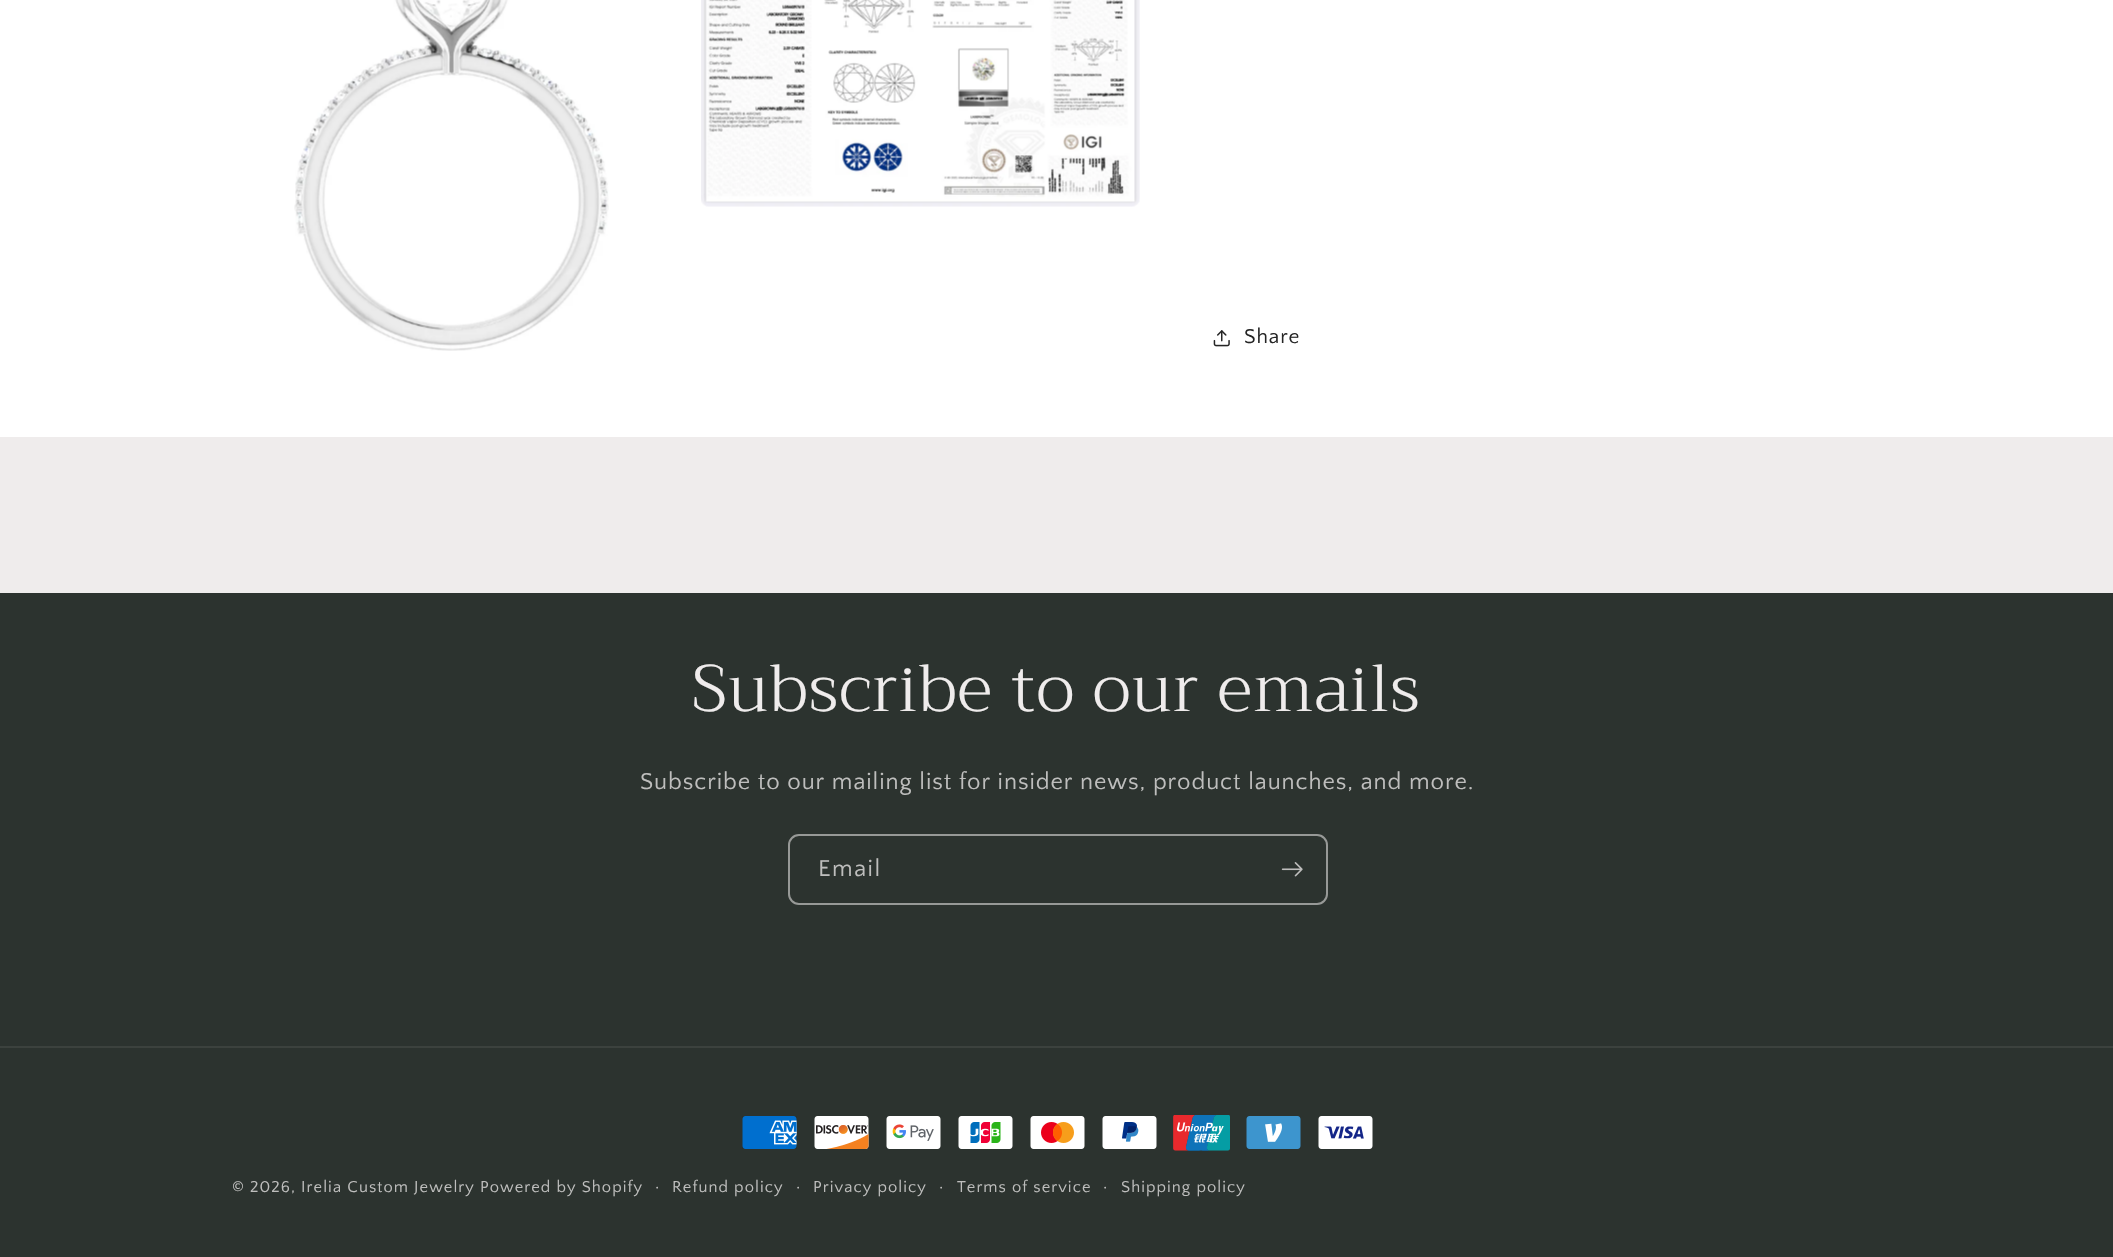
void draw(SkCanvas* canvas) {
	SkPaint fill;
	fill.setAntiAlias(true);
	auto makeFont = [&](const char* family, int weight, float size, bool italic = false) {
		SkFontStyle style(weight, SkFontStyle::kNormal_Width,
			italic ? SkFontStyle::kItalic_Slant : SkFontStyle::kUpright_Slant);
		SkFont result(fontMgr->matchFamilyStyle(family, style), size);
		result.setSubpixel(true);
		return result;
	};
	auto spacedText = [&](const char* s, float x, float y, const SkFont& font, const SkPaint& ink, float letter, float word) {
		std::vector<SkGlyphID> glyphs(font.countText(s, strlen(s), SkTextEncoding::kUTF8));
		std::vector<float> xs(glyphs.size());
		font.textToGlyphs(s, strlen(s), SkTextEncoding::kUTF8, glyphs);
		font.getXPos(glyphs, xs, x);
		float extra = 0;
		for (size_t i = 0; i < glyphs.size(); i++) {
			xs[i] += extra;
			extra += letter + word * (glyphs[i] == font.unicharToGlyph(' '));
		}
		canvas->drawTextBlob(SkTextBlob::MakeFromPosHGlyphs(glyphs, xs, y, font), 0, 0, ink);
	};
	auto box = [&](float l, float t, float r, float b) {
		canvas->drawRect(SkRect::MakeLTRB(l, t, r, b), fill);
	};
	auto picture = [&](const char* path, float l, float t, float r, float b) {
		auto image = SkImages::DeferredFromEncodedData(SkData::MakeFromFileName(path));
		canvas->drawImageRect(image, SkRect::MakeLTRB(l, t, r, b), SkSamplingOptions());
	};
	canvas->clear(0xFFEFECEC);
	fill.setColor(0xFFFFFFFF);
	box(0, 0, 2113, 437);
	picture("image0.png", 294, 0, 609, 351);
	picture("image1.png", 701, 0, 1140, 207);
	picture("image2.png", 1213, 330, 1230, 347);
	fill.setColor(0xFF2C332F);
	box(0, 593, 2113, 1257);
	fill.setStyle(SkPaint::kStroke_Style);
	fill.setStrokeWidth(2);
	fill.setColor(0xFF979997);
	canvas->drawRoundRect(SkRect::MakeLTRB(789, 835, 1327, 904), 10, 10, fill);
	picture("image3.png", 1281, 862, 1303, 877);
	fill.setStyle(SkPaint::kFill_Style);
	fill.setColor(0xFF3C423E);
	box(0, 1046, 2113, 1048);
	picture("image4.png", 742, 1116, 797, 1149);
	picture("image5.png", 814, 1116, 869, 1149);
	picture("image6.png", 886, 1116, 941, 1149);
	picture("image7.png", 958, 1116, 1013, 1149);
	picture("image8.png", 1030, 1116, 1085, 1149);
	picture("image9.png", 1102, 1116, 1157, 1149);
	picture("image10.png", 1173, 1115, 1230, 1151);
	picture("image11.png", 1246, 1116, 1301, 1149);
	picture("image12.png", 1318, 1116, 1373, 1149);
	auto font1 = makeFont("Quattrocento Sans", 400, 21);
	fill.setColor(0xFF252525);
	spacedText("Share", 1244, 343, font1, fill, 0.9f, 0);
	auto font2 = makeFont("Trirong", 300, 66);
	fill.setColor(0xFFEFECEC);
	spacedText("Subscribe to our emails", 692, 711, font2, fill, 1, 0);
	auto font3 = makeFont("Quattrocento Sans", 400, 24);
	fill.setColor(0xFFBEBEBD);
	spacedText("Subscribe to our mailing list for insider news, product launches, and more.", 640, 789, font3, fill, 0.9f, 0);
	spacedText("Email", 818, 876, font3, fill, 1.5f, 0);
	auto font4 = makeFont("Quattrocento Sans", 400, 16.5f);
	spacedText("© 2026, Irelia Custom Jewelry Powered by Shopify", 232, 1192, font4, fill, 1.05f, 0);
	auto font5 = makeFont("Quattrocento Sans", 400, 18);
	spacedText("·", 655, 1192, font5, fill, 1.05f, 0);
	spacedText("Refund policy", 672, 1192, font4, fill, 1.05f, 0);
	spacedText("·", 796, 1192, font5, fill, 1.05f, 0);
	spacedText("Privacy policy", 813, 1192, font4, fill, 1.05f, 0);
	spacedText("·", 939, 1192, font5, fill, 1.05f, 0);
	spacedText("Terms of service", 957, 1192, font4, fill, 1.05f, 0);
	spacedText("·", 1103, 1192, font5, fill, 1.05f, 0);
	spacedText("Shipping policy", 1121, 1192, font4, fill, 1.05f, 0);
}
